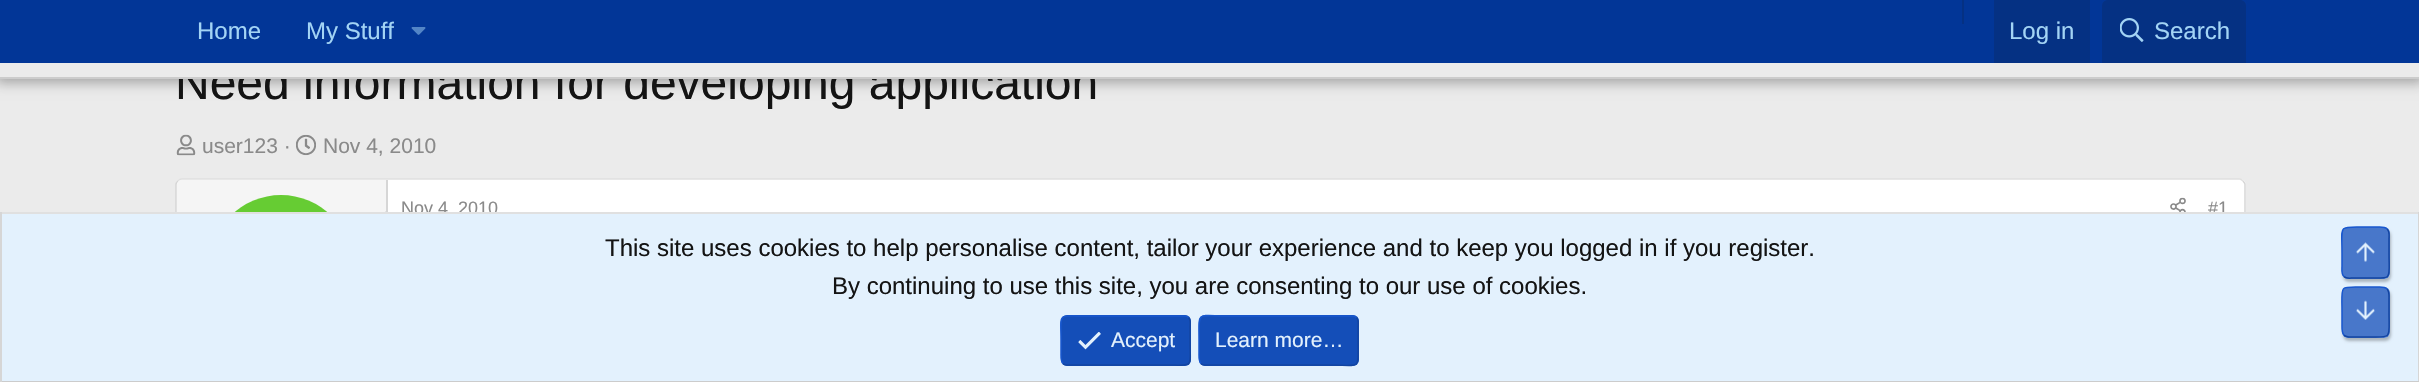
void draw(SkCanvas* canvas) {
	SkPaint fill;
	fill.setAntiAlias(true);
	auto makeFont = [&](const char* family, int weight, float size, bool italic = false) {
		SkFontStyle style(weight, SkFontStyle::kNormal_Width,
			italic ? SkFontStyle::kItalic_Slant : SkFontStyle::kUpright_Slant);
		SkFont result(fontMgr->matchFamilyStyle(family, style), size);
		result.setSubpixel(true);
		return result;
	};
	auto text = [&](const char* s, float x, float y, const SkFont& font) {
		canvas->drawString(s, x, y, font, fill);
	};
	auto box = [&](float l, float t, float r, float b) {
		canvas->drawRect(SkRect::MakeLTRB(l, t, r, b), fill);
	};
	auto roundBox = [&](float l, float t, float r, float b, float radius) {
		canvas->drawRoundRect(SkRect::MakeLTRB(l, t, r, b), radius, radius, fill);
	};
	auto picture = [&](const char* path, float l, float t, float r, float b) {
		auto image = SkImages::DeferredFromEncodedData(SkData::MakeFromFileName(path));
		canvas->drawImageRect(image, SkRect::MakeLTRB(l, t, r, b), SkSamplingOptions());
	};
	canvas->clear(0xFFEBEBEB);
	fill.setColor(0x4D000000);
	fill.setMaskFilter(SkMaskFilter::MakeBlur(kNormal_SkBlurStyle, 6));
	canvas->drawRect(SkRect::MakeLTRB(-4, -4, 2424, 83), fill);
	fill.setMaskFilter(nullptr);
	fill.setColor(0xFF023697);
	box(0, 0, 2419, 63);
	picture("image0.png", 411, 27, 426, 35);
	fill.setColor(0xFF053183);
	box(1962, 0, 1964, 24);
	box(1994, 0, 2090, 63);
	canvas->drawPath(SkPathBuilder().moveTo(2108, 0).lineTo(2240, 0).cubicTo(2243.5f, 0, 2246, 2.5f, 2246, 6).lineTo(2246, 63).lineTo(2102, 63).lineTo(2102, 6).cubicTo(2102, 2.5f, 2104.5f, 0, 2108, 0).close().detach(), fill);
	picture("image1.png", 2120, 18, 2144, 42);
	picture("image2.png", 176, 134, 196, 156);
	picture("image3.png", 296, 134, 316, 156);
	fill.setColor(0xFFFFFFFF);
	roundBox(176, 179, 2246, 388, 6);
	fill.setStyle(SkPaint::kStroke_Style);
	fill.setStrokeWidth(1.5f);
	fill.setColor(0xFFE0E0E0);
	canvas->drawPath(SkPathBuilder().moveTo(178, 181).cubicTo(179, 180, 180, 179, 181.5f, 179).lineTo(2239.5f, 179).cubicTo(2241, 179, 2242, 180, 2243, 181).detach(), fill);
	fill.setColor(0xFFD6D6D6);
	canvas->drawPath(SkPathBuilder().moveTo(2243, 181).cubicTo(2244, 182, 2245, 183, 2245, 184.5f).lineTo(2245, 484.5f).cubicTo(2245, 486, 2244, 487, 2243, 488).detach(), fill);
	canvas->drawPath(SkPathBuilder().moveTo(178, 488).cubicTo(177, 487, 176, 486, 176, 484.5f).lineTo(176, 184.5f).cubicTo(176, 183, 177, 182, 178, 181).detach(), fill);
	fill.setStyle(SkPaint::kFill_Style);
	fill.setColor(0xFFF5F5F5);
	canvas->drawPath(SkPathBuilder().moveTo(182, 180).lineTo(387, 180).lineTo(387, 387).lineTo(182, 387).cubicTo(179, 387, 177, 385, 177, 382).lineTo(177, 185).cubicTo(177, 182, 179, 180, 182, 180).close().detach(), fill);
	fill.setColor(0xFFD6D6D6);
	box(386, 180, 388, 212);
	fill.setColor(0xFF66CC33);
	canvas->drawCircle(281, 267, 72, fill);
	fill.setColor(0xFFD6D6D6);
	canvas->drawPath(SkPathBuilder().moveTo(387, 210).lineTo(387, 240).lineTo(372, 225).close().detach(), fill);
	picture("image4.png", 2170, 197, 2186, 212);
	auto font1 = makeFont("Liberation Sans", 400, 24);
	fill.setColor(0xFFA3D4F5);
	text("Home", 197, 39, font1);
	text("My Stuff", 306, 39, font1);
	text("Log in", 2009, 39, font1);
	text("Search", 2154, 39, font1);
	auto font2 = makeFont("Liberation Sans", 400, 48);
	fill.setColor(0xFF141414);
	text("Need information for developing application", 175, 99, font2);
	fill.setColor(0xFFCCCCCC);
	box(0, 77, 2419, 79);
	fill.setColor(0xFFEBEBEB);
	box(0, 63, 2419, 77);
	auto font3 = makeFont("Liberation Sans", 400, 21);
	fill.setColor(0xFF8A8A8A);
	text("user123 ·", 202, 153, font3);
	text("Nov 4, 2010", 323, 153, font3);
	auto font4 = makeFont("Liberation Sans", 400, 18);
	text("Nov 4, 2010", 401, 214, font4);
	text("#1", 2208, 214, font4);
	fill.setColor(0xFFE3F1FD);
	box(2, 214, 2418, 381);
	fill.setColor(0xFFE0E0E0);
	box(0, 212, 2419, 214);
	fill.setColor(0xFFD6D6D6);
	box(2418, 212, 2419, 382);
	fill.setColor(0xFFCCCCCC);
	box(0, 381, 2419, 382);
	fill.setColor(0xFFD6D6D6);
	box(0, 212, 2, 382);
	fill.setColor(0xFF141414);
	text("This site uses cookies to help personalise content, tailor your experience and to keep you logged in if you register.", 605, 256, font1);
	text("By continuing to use this site, you are consenting to our use of cookies.", 832, 294, font1);
	fill.setColor(0xFF144EB8);
	roundBox(1061, 315, 1191, 366, 6);
	fill.setStyle(SkPaint::kStroke_Style);
	fill.setColor(0xFF1244A1);
	canvas->drawPath(SkPathBuilder().moveTo(1188.5f, 317.5f).cubicTo(1191, 320, 1190, 324.5f, 1190, 327.5f).lineTo(1190, 340.5f).cubicTo(1190, 369, 1195, 365, 1165, 365).lineTo(1066.5f, 365).cubicTo(1065, 365, 1064, 364.5f, 1063, 363.5f).detach(), fill);
	fill.setColor(0xFF1757CF);
	canvas->drawPath(SkPathBuilder().moveTo(1063, 363.5f).cubicTo(1060.5f, 361, 1061, 356.5f, 1061, 353.5f).lineTo(1061, 340.5f).cubicTo(1061, 312, 1056.5f, 316, 1086, 316).lineTo(1185, 316).cubicTo(1186.5f, 316, 1187.5f, 316.5f, 1188.5f, 317.5f).detach(), fill);
	picture("image5.png", 1078, 332, 1101, 350);
	fill.setStyle(SkPaint::kFill_Style);
	fill.setColor(0xFFE3F1FD);
	text("Accept", 1111, 347, font3);
	fill.setColor(0xFF144EB8);
	roundBox(1199, 315, 1359, 366, 6);
	fill.setStyle(SkPaint::kStroke_Style);
	fill.setColor(0xFF1244A1);
	canvas->drawPath(SkPathBuilder().moveTo(1356.5f, 317.5f).cubicTo(1359, 320, 1358, 324.5f, 1358, 327.5f).lineTo(1358, 340.5f).cubicTo(1358, 371, 1362, 365, 1328, 365).lineTo(1204.5f, 365).cubicTo(1203, 365, 1202, 364.5f, 1201, 363.5f).detach(), fill);
	fill.setColor(0xFF1757CF);
	canvas->drawPath(SkPathBuilder().moveTo(1201, 363.5f).cubicTo(1198.5f, 361, 1199, 356.5f, 1199, 353.5f).lineTo(1199, 340.5f).cubicTo(1199, 310, 1195.5f, 316, 1229, 316).lineTo(1353, 316).cubicTo(1354.5f, 316, 1355.5f, 316.5f, 1356.5f, 317.5f).detach(), fill);
	fill.setStyle(SkPaint::kFill_Style);
	fill.setColor(0xFFE3F1FD);
	text("Learn more…", 1215, 347, font3);
	canvas->save();
	canvas->clipPath(SkPathBuilder(SkPathFillType::kEvenOdd).moveTo(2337, 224).lineTo(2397, 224).lineTo(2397, 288).lineTo(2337, 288).close().moveTo(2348, 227).lineTo(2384, 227).cubicTo(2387.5f, 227, 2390, 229.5f, 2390, 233).lineTo(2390, 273).cubicTo(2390, 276.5f, 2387.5f, 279, 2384, 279).lineTo(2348, 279).cubicTo(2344.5f, 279, 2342, 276.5f, 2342, 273).lineTo(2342, 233).cubicTo(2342, 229.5f, 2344.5f, 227, 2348, 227).close().detach(), true);
	fill.setColor(0x40000000);
	fill.setMaskFilter(SkMaskFilter::MakeBlur(kNormal_SkBlurStyle, 1.5f));
	canvas->drawRoundRect(SkRect::MakeLTRB(2343, 230, 2391, 282), 6, 6, fill);
	fill.setMaskFilter(nullptr);
	canvas->restore();
	fill.setColor(0xBF144EB8);
	roundBox(2342, 227, 2390, 279, 6);
	fill.setStyle(SkPaint::kStroke_Style);
	fill.setColor(0xFF1244A1);
	canvas->drawPath(SkPathBuilder().moveTo(2387, 229).cubicTo(2390, 231.5f, 2389, 236.5f, 2389, 239).lineTo(2389, 253).cubicTo(2389, 281.5f, 2393.5f, 278, 2365.5f, 278).lineTo(2353.5f, 278).cubicTo(2350.5f, 278, 2346, 279, 2344, 276.5f).detach(), fill);
	fill.setColor(0xFF1757CF);
	canvas->drawPath(SkPathBuilder().moveTo(2344, 276.5f).cubicTo(2341, 274, 2342, 269, 2342, 266).lineTo(2342, 253).cubicTo(2342, 224, 2337.5f, 227, 2365.5f, 227).lineTo(2377.5f, 227).cubicTo(2380.5f, 227, 2385, 226.5f, 2387, 229).detach(), fill);
	picture("image6.png", 2356, 242, 2375, 262);
	canvas->save();
	canvas->clipPath(SkPathBuilder(SkPathFillType::kEvenOdd).moveTo(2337, 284).lineTo(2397, 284).lineTo(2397, 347).lineTo(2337, 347).close().moveTo(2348, 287).lineTo(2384, 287).cubicTo(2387.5f, 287, 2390, 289.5f, 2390, 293).lineTo(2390, 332).cubicTo(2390, 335.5f, 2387.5f, 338, 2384, 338).lineTo(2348, 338).cubicTo(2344.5f, 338, 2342, 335.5f, 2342, 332).lineTo(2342, 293).cubicTo(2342, 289.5f, 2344.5f, 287, 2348, 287).close().detach(), true);
	fill.setStyle(SkPaint::kFill_Style);
	fill.setColor(0x40000000);
	fill.setMaskFilter(SkMaskFilter::MakeBlur(kNormal_SkBlurStyle, 1.5f));
	canvas->drawRoundRect(SkRect::MakeLTRB(2343, 290, 2391, 341), 6, 6, fill);
	fill.setMaskFilter(nullptr);
	canvas->restore();
	fill.setColor(0xBF144EB8);
	roundBox(2342, 287, 2390, 338, 6);
	fill.setStyle(SkPaint::kStroke_Style);
	fill.setColor(0xFF1244A1);
	canvas->drawPath(SkPathBuilder().moveTo(2387, 289).cubicTo(2389.5f, 291.5f, 2389, 296, 2389, 299).lineTo(2389, 312).cubicTo(2389, 340.5f, 2393, 337, 2365.5f, 337).lineTo(2353.5f, 337).cubicTo(2350.5f, 337, 2346, 337.5f, 2344, 335).detach(), fill);
	fill.setColor(0xFF1757CF);
	canvas->drawPath(SkPathBuilder().moveTo(2344, 335).cubicTo(2341.5f, 332.5f, 2342, 328, 2342, 325).lineTo(2342, 312).cubicTo(2342, 283.5f, 2338, 287, 2365.5f, 287).lineTo(2377.5f, 287).cubicTo(2380.5f, 287, 2385, 286.5f, 2387, 289).detach(), fill);
	picture("image7.png", 2356, 300, 2375, 320);
}
